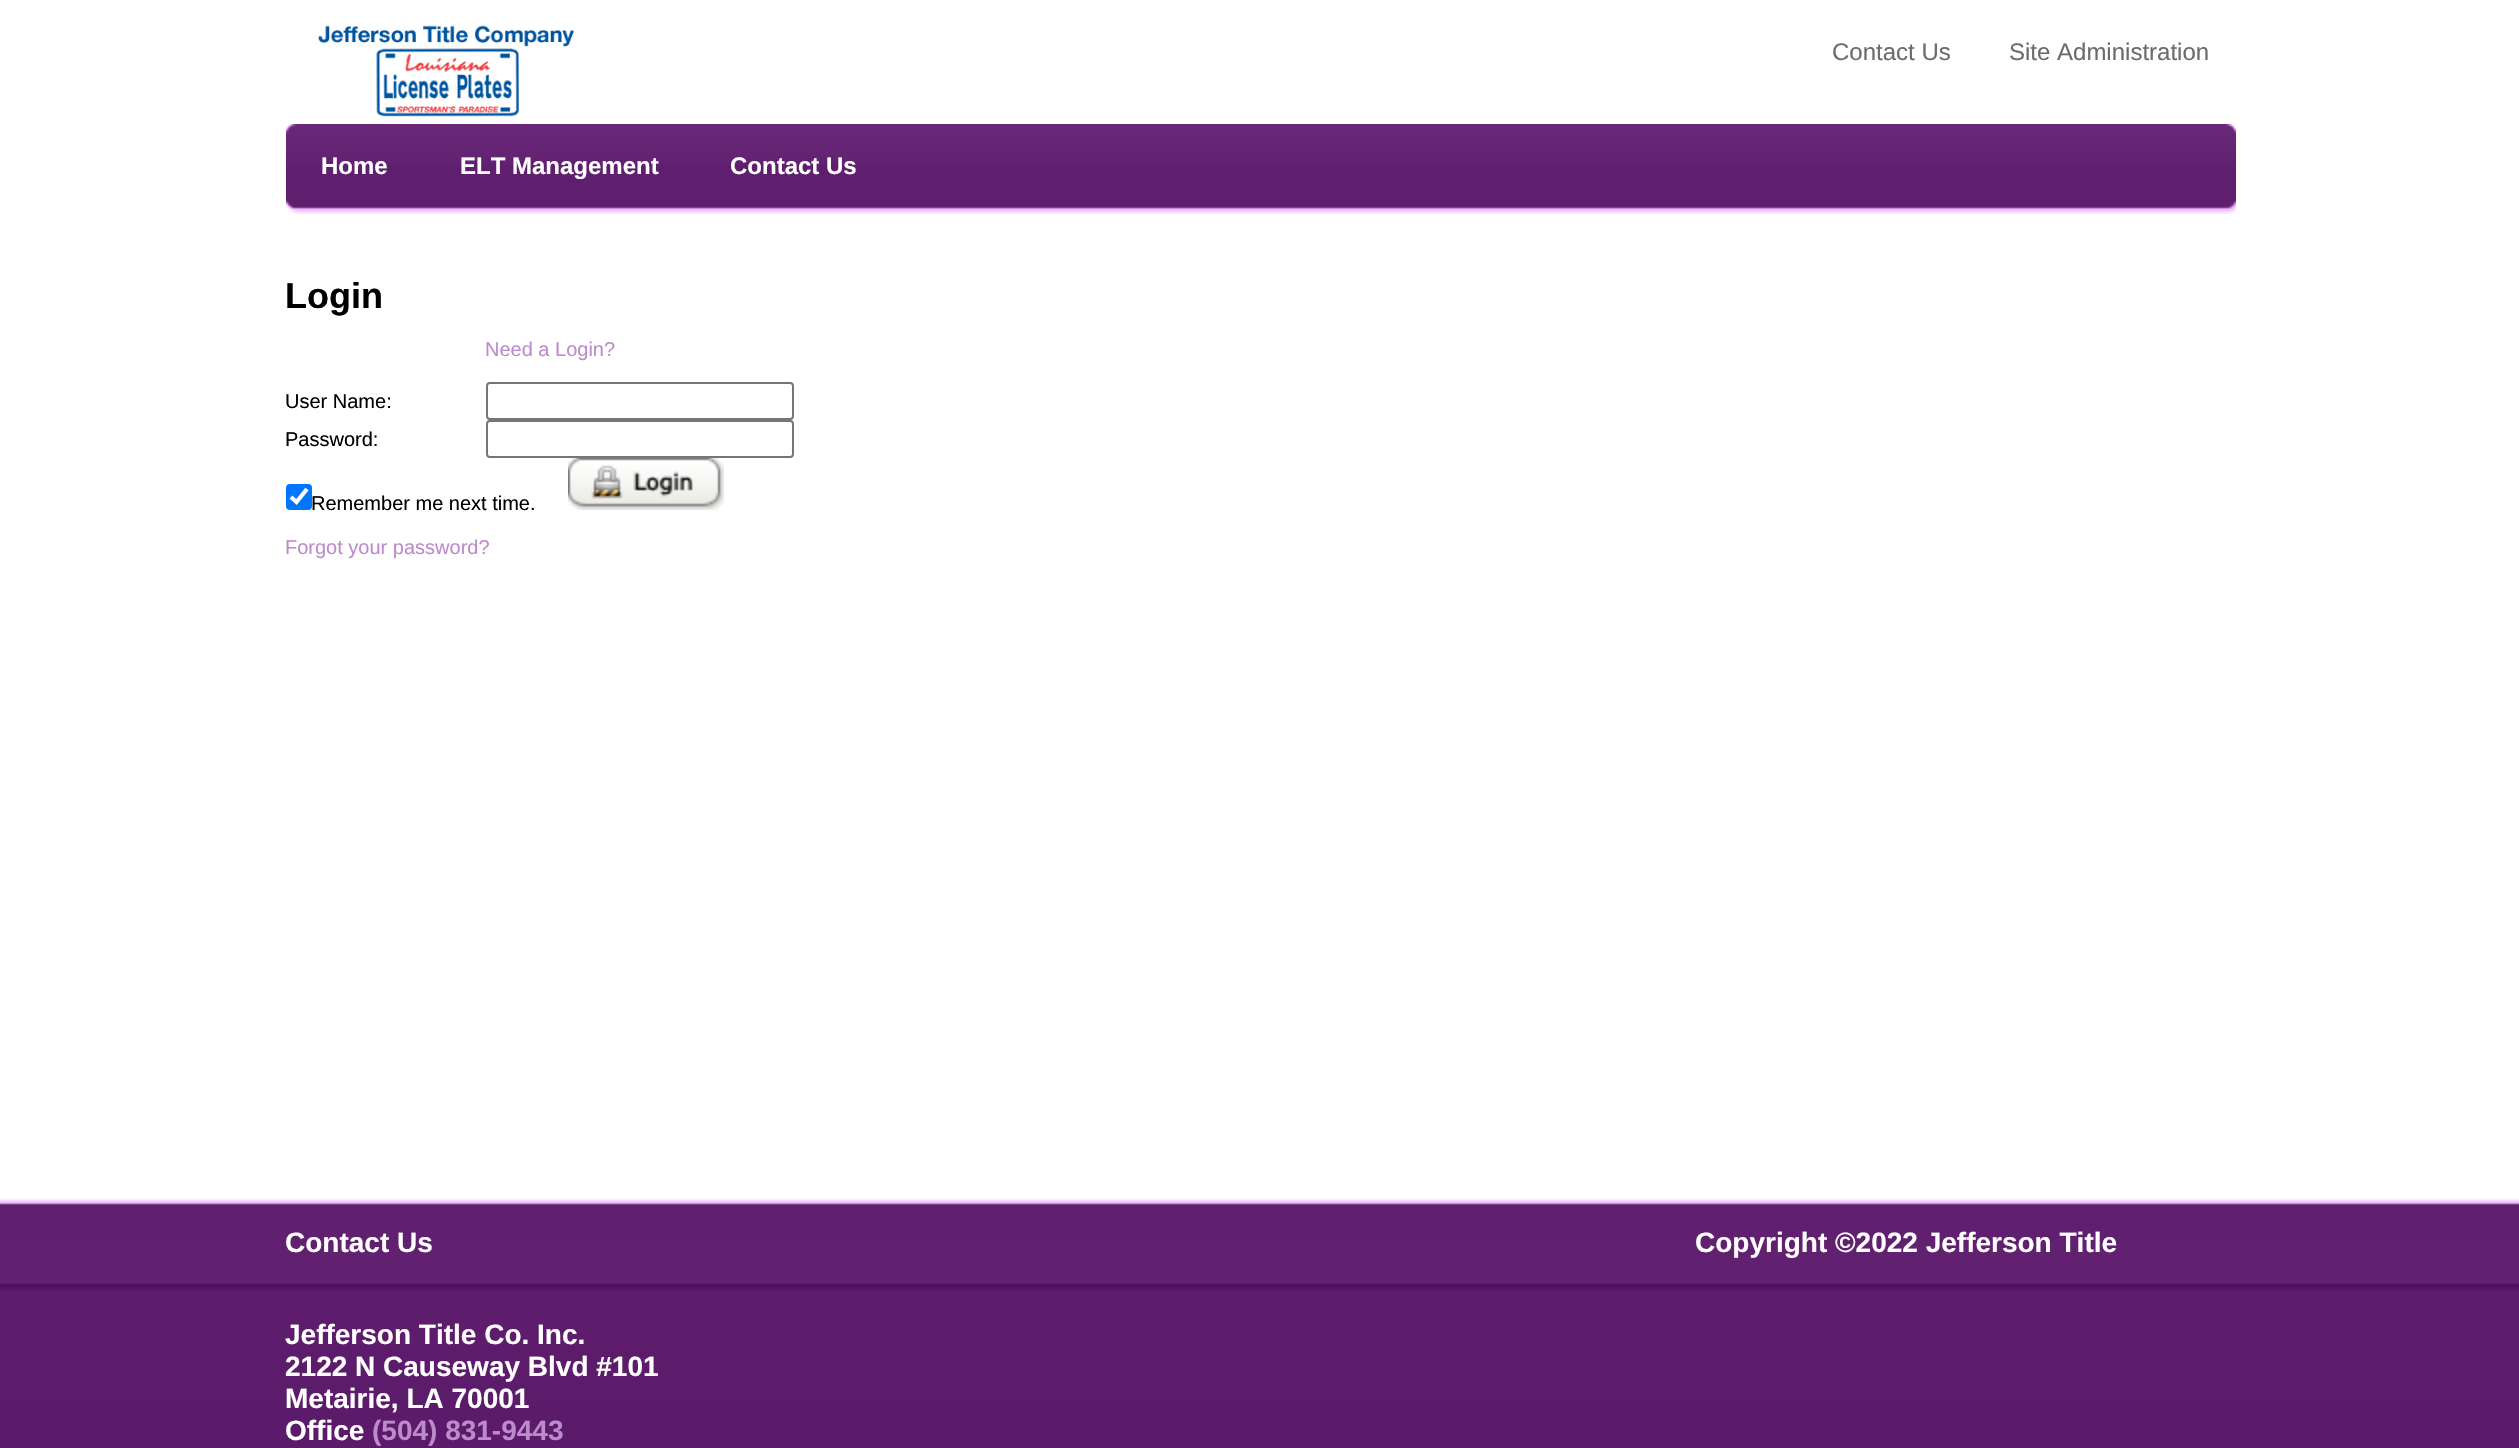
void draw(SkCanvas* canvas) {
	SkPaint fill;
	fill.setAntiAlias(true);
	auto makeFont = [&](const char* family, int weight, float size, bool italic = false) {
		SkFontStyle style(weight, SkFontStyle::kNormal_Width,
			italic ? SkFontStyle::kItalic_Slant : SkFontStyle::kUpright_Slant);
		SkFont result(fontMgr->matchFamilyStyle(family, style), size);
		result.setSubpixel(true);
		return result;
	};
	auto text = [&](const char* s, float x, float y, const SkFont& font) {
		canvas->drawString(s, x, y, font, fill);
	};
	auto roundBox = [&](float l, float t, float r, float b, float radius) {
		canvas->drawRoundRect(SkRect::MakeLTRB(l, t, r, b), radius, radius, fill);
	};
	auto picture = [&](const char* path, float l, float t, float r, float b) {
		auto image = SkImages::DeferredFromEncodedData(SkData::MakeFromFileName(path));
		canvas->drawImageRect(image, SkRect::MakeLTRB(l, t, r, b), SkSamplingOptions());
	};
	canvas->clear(0xFFFFFFFF);
	picture("image0.png", 0, 1198, 2519, 1448);
	picture("image1.png", 318, 25, 574, 117);
	picture("image2.png", 286, 124, 2236, 214);
	fill.setStyle(SkPaint::kStroke_Style);
	fill.setStrokeWidth(2);
	fill.setColor(0xFF767676);
	canvas->drawRoundRect(SkRect::MakeLTRB(487, 383, 793, 419), 3, 3, fill);
	canvas->drawRoundRect(SkRect::MakeLTRB(487, 421, 793, 457), 3, 3, fill);
	fill.setStyle(SkPaint::kFill_Style);
	fill.setColor(0xFF0075FF);
	roundBox(286, 484, 312, 510, 4);
	fill.setStyle(SkPaint::kStroke_Style);
	fill.setStrokeWidth(4.2f);
	fill.setColor(0xFFFFFFFF);
	canvas->drawPath(SkPathBuilder().moveTo(291, 497).lineTo(296.5f, 502).lineTo(307, 489).detach(), fill);
	picture("image3.png", 568, 458, 724, 510);
	auto font1 = makeFont("Liberation Sans", 400, 24);
	fill.setStyle(SkPaint::kFill_Style);
	fill.setColor(0xFF6C6C6C);
	text("Contact Us", 1832, 60, font1);
	text("Site Administration", 2009, 60, font1);
	auto font2 = makeFont("Liberation Sans", 700, 24);
	fill.setColor(0xFFFFFFFF);
	text("Home", 321, 174, font2);
	text("ELT Management", 460, 174, font2);
	text("Contact Us", 730, 174, font2);
	auto font3 = makeFont("Liberation Sans", 700, 36);
	fill.setColor(0xFF000000);
	text("Login", 285, 308, font3);
	auto font4 = makeFont("Liberation Sans", 400, 20);
	fill.setColor(0xFFBD8ACC);
	text("Need a Login?", 485, 356, font4);
	fill.setColor(0xFF000000);
	text("User Name:", 285, 408, font4);
	text("Password:", 285, 446, font4);
	text("Remember me next time.", 311, 510, font4);
	fill.setColor(0xFFBD8ACC);
	text("Forgot your password?", 285, 554, font4);
	auto font5 = makeFont("Liberation Sans", 700, 28);
	fill.setColor(0xFFFFFFFF);
	text("Contact Us", 285, 1252, font5);
	text("Jefferson Title Co. Inc.", 285, 1344, font5);
	text("2122 N Causeway Blvd #101", 285, 1376, font5);
	text("Metairie, LA 70001", 285, 1408, font5);
	text("Office", 285, 1440, font5);
	fill.setColor(0xFFBD8ACC);
	text("(504) 831-9443", 372, 1440, font5);
	fill.setColor(0xFFFFFFFF);
	text("Copyright ©2022 Jefferson Title", 1695, 1252, font5);
}
